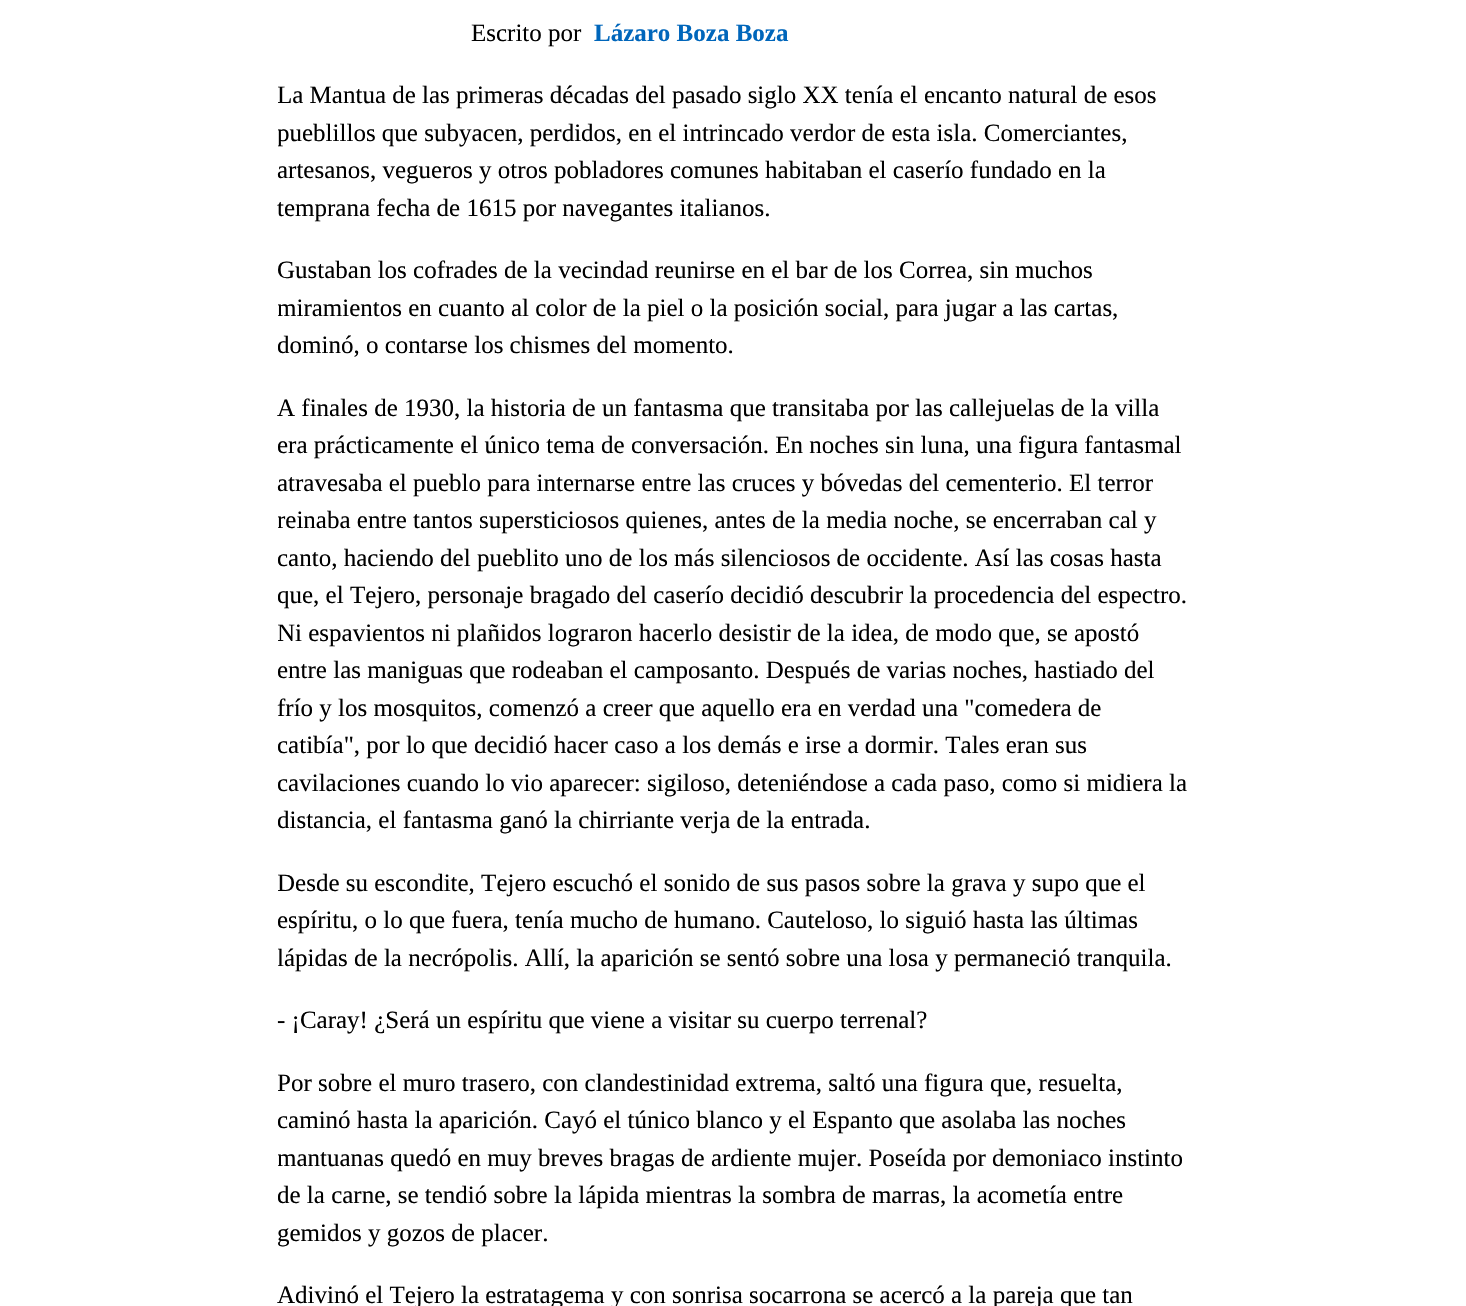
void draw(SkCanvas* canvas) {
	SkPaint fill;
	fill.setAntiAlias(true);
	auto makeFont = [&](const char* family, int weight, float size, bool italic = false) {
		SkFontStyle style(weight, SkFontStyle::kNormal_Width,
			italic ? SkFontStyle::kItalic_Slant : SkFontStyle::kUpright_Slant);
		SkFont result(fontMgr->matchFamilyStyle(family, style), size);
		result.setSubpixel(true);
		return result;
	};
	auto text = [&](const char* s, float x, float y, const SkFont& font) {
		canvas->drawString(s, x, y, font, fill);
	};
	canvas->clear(0xFFFFFFFF);
	auto font1 = makeFont("Liberation Serif", 400, 25);
	fill.setColor(0xFF000000);
	text("Escrito por", 471, 41, font1);
	auto font2 = makeFont("Liberation Serif", 700, 25);
	fill.setColor(0xFF0066BB);
	text("Lázaro Boza Boza", 594, 41, font2);
	canvas->save();
	canvas->clipRect(SkRect::MakeLTRB(278, 0, 1190, 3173));
	fill.setColor(0xFF000000);
	text("La Mantua de las primeras décadas del pasado siglo XX tenía el encanto natural de esos", 277, 103, font1);
	text("pueblillos que subyacen, perdidos, en el intrincado verdor de esta isla. Comerciantes,", 277, 141, font1);
	canvas->restore();
	text("artesanos, vegueros y otros pobladores comunes habitaban el caserío fundado en la", 277, 178, font1);
	text("temprana fecha de 1615 por navegantes italianos.", 277, 216, font1);
	text("Gustaban los cofrades de la vecindad reunirse en el bar de los Correa, sin muchos", 277, 278, font1);
	canvas->save();
	canvas->clipRect(SkRect::MakeLTRB(278, 0, 1190, 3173));
	text("miramientos en cuanto al color de la piel o la posición social, para jugar a las cartas,", 277, 316, font1);
	text("dominó, o contarse los chismes del momento.", 277, 353, font1);
	canvas->restore();
	text("A finales de 1930, la historia de un fantasma que transitaba por las callejuelas de la villa", 277, 416, font1);
	canvas->save();
	canvas->clipRect(SkRect::MakeLTRB(278, 0, 1190, 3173));
	text("era prácticamente el único tema de conversación. En noches sin luna, una figura fantasmal", 277, 453, font1);
	canvas->restore();
	text("atravesaba el pueblo para internarse entre las cruces y bóvedas del cementerio. El terror", 277, 491, font1);
	canvas->save();
	canvas->clipRect(SkRect::MakeLTRB(278, 0, 1190, 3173));
	text("reinaba entre tantos supersticiosos quienes, antes de la media noche, se encerraban cal y", 277, 528, font1);
	text("canto, haciendo del pueblito uno de los más silenciosos de occidente. Así las cosas hasta", 277, 566, font1);
	text("que, el Tejero, personaje bragado del caserío decidió descubrir la procedencia del espectro.", 277, 603, font1);
	text("Ni espavientos ni plañidos lograron hacerlo desistir de la idea, de modo que, se apostó", 277, 641, font1);
	text("entre las maniguas que rodeaban el camposanto. Después de varias noches, hastiado del", 277, 678, font1);
	canvas->restore();
	text("frío y los mosquitos, comenzó a creer que aquello era en verdad una \"comedera de", 277, 716, font1);
	canvas->save();
	canvas->clipRect(SkRect::MakeLTRB(278, 0, 1190, 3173));
	text("catibía\", por lo que decidió hacer caso a los demás e irse a dormir. Tales eran sus", 277, 753, font1);
	text("cavilaciones cuando lo vio aparecer: sigiloso, deteniéndose a cada paso, como si midiera la", 277, 791, font1);
	text("distancia, el fantasma ganó la chirriante verja de la entrada.", 277, 828, font1);
	text("Desde su escondite, Tejero escuchó el sonido de sus pasos sobre la grava y supo que el", 277, 891, font1);
	text("espíritu, o lo que fuera, tenía mucho de humano. Cauteloso, lo siguió hasta las últimas", 277, 928, font1);
	text("lápidas de la necrópolis. Allí, la aparición se sentó sobre una losa y permaneció tranquila.", 277, 966, font1);
	canvas->restore();
	text("- ¡Caray! ¿Será un espíritu que viene a visitar su cuerpo terrenal?", 277, 1028, font1);
	canvas->save();
	canvas->clipRect(SkRect::MakeLTRB(278, 0, 1190, 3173));
	text("Por sobre el muro trasero, con clandestinidad extrema, saltó una figura que, resuelta,", 277, 1091, font1);
	text("caminó hasta la aparición. Cayó el túnico blanco y el Espanto que asolaba las noches", 277, 1128, font1);
	text("mantuanas quedó en muy breves bragas de ardiente mujer. Poseída por demoniaco instinto", 277, 1166, font1);
	text("de la carne, se tendió sobre la lápida mientras la sombra de marras, la acometía entre", 277, 1203, font1);
	canvas->restore();
	text("gemidos y gozos de placer.", 277, 1241, font1);
	text("Adivinó el Tejero la estratagema y con sonrisa socarrona se acercó a la pareja que tan", 277, 1303, font1);
}
